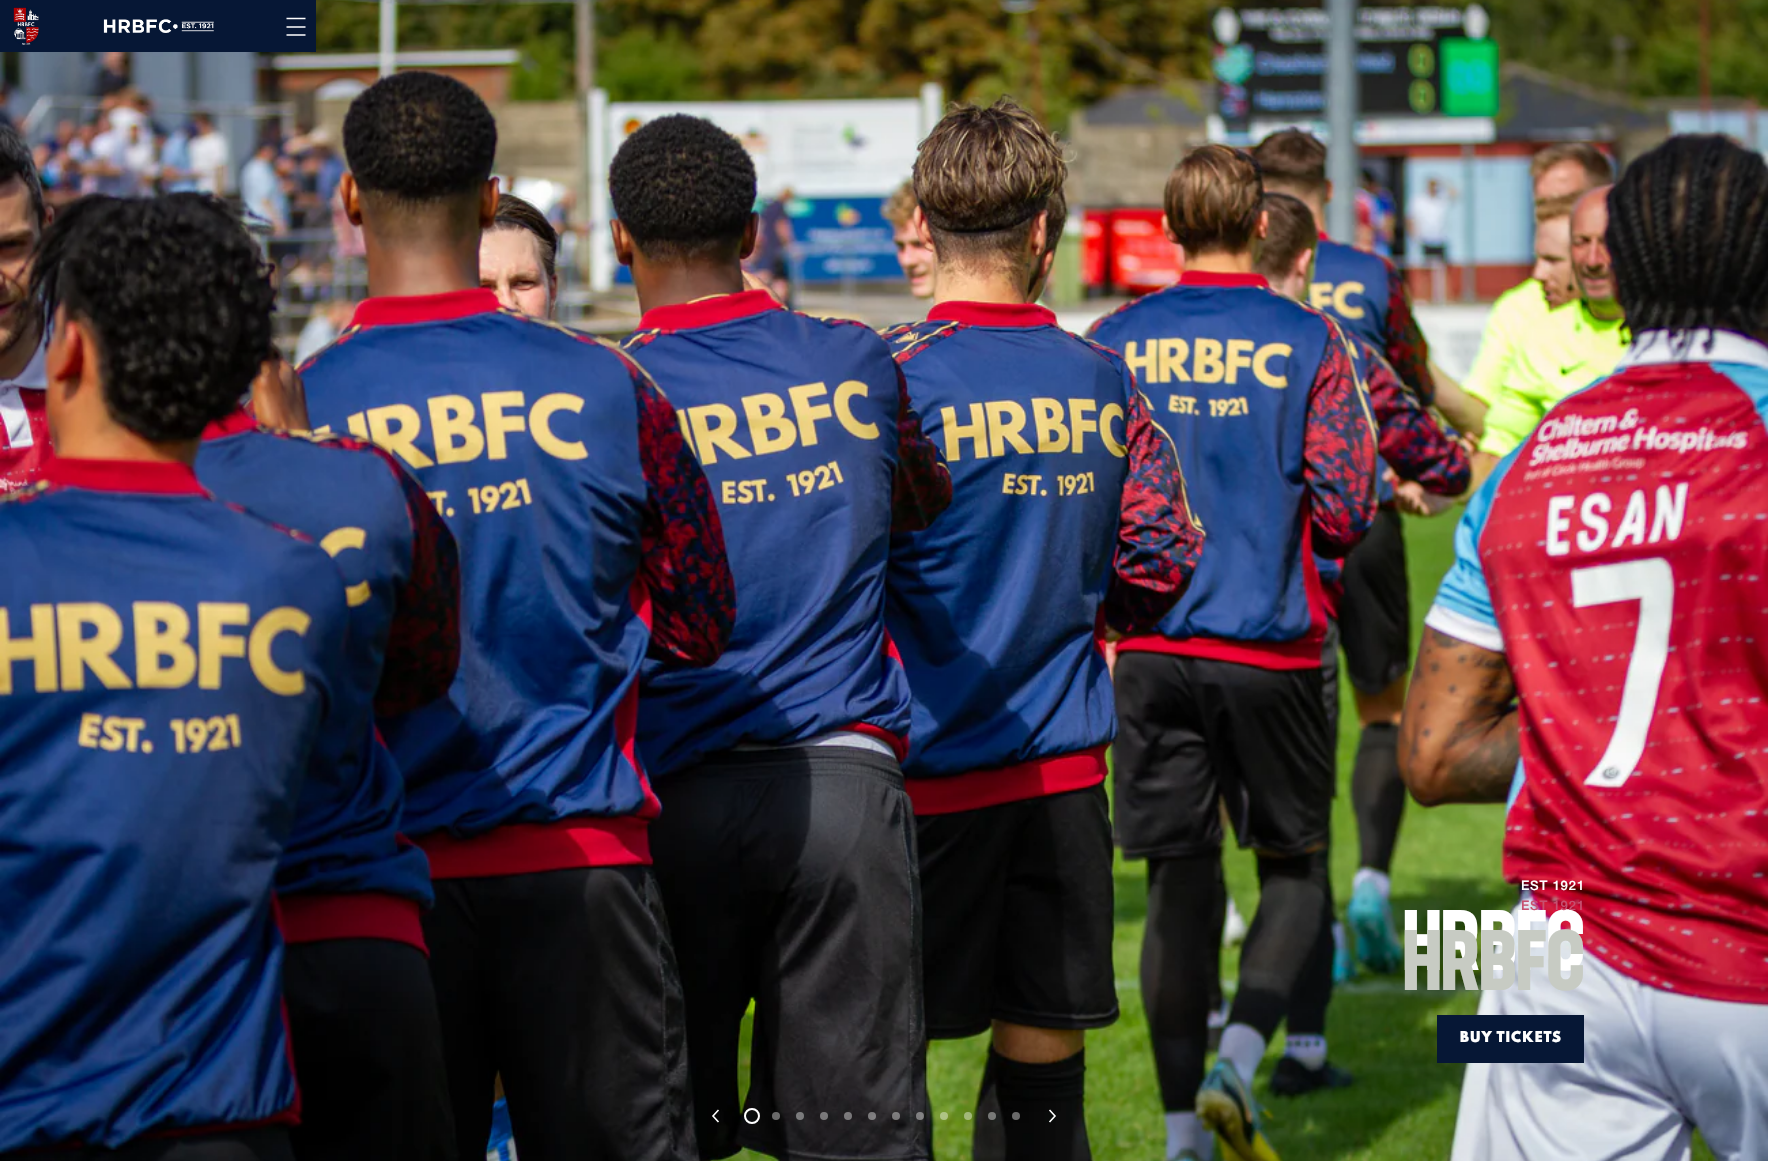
void draw(SkCanvas* canvas) {
	SkPaint fill;
	fill.setAntiAlias(true);
	auto makeFont = [&](const char* family, int weight, float size, bool italic = false) {
		SkFontStyle style(weight, SkFontStyle::kNormal_Width,
			italic ? SkFontStyle::kItalic_Slant : SkFontStyle::kUpright_Slant);
		SkFont result(fontMgr->matchFamilyStyle(family, style), size);
		result.setSubpixel(true);
		return result;
	};
	auto text = [&](const char* s, float x, float y, const SkFont& font) {
		canvas->drawString(s, x, y, font, fill);
	};
	auto spacedText = [&](const char* s, float x, float y, const SkFont& font, const SkPaint& ink, float letter, float word) {
		std::vector<SkGlyphID> glyphs(font.countText(s, strlen(s), SkTextEncoding::kUTF8));
		std::vector<float> xs(glyphs.size());
		font.textToGlyphs(s, strlen(s), SkTextEncoding::kUTF8, glyphs);
		font.getXPos(glyphs, xs, x);
		float extra = 0;
		for (size_t i = 0; i < glyphs.size(); i++) {
			xs[i] += extra;
			extra += letter + word * (glyphs[i] == font.unicharToGlyph(' '));
		}
		canvas->drawTextBlob(SkTextBlob::MakeFromPosHGlyphs(glyphs, xs, y, font), 0, 0, ink);
	};
	auto box = [&](float l, float t, float r, float b) {
		canvas->drawRect(SkRect::MakeLTRB(l, t, r, b), fill);
	};
	auto picture = [&](const char* path, float l, float t, float r, float b) {
		auto image = SkImages::DeferredFromEncodedData(SkData::MakeFromFileName(path));
		canvas->drawImageRect(image, SkRect::MakeLTRB(l, t, r, b), SkSamplingOptions());
	};
	canvas->clear(0xFFFFFFFF);
	picture("image2.png", 0, 0, 1768, 1161);
	fill.setColor(0xFF061735);
	box(0, 0, 316, 52);
	picture("image0.png", 13, 7, 39, 45);
	picture("image1.png", 103, 19, 214, 33);
	fill.setStyle(SkPaint::kStroke_Style);
	fill.setStrokeWidth(1.4f);
	fill.setColor(0xFFFFFFFF);
	canvas->drawPath(SkPathBuilder().moveTo(286.5f, 27).lineTo(305.5f, 27).moveTo(286.5f, 18.5f).lineTo(305.5f, 18.5f).moveTo(286.5f, 35).lineTo(305.5f, 35).detach(), fill);
	canvas->save();
	canvas->clipRect(SkRect::MakeLTRB(1437, 1015, 1584, 1063));
	fill.setStyle(SkPaint::kFill_Style);
	fill.setColor(0xFF061735);
	canvas->drawPath(SkPathBuilder().moveTo(1401, 1015).lineTo(1592, 1015).lineTo(1620, 1063).lineTo(1428, 1063).close().detach(), fill);
	canvas->restore();
	fill.setStyle(SkPaint::kStroke_Style);
	fill.setStrokeWidth(1.6f);
	fill.setColor(0xFFFFFFFF);
	canvas->drawPath(SkPathBuilder().moveTo(718.5f, 1110).lineTo(713, 1116).lineTo(718.5f, 1122).detach(), fill);
	fill.setStrokeWidth(2);
	fill.setColor(0x1AFFFFFF);
	canvas->drawCircle(752, 1116, 7, fill);
	fill.setColor(0xFFFFFFFF);
	canvas->drawCircle(752, 1116, 7, fill);
	fill.setStyle(SkPaint::kFill_Style);
	fill.setColor(0x66FFFFFF);
	canvas->drawCircle(776, 1116, 4, fill);
	canvas->drawCircle(800, 1116, 4, fill);
	canvas->drawCircle(824, 1116, 4, fill);
	canvas->drawCircle(848, 1116, 4, fill);
	canvas->drawCircle(872, 1116, 4, fill);
	canvas->drawCircle(896, 1116, 4, fill);
	canvas->drawCircle(920, 1116, 4, fill);
	canvas->drawCircle(944, 1116, 4, fill);
	canvas->drawCircle(968, 1116, 4, fill);
	canvas->drawCircle(992, 1116, 4, fill);
	fill.setColor(0xFF6A6A6A);
	canvas->drawCircle(1016, 1116, 4, fill);
	fill.setStyle(SkPaint::kStroke_Style);
	fill.setStrokeWidth(1.6f);
	fill.setColor(0xFFFFFFFF);
	canvas->drawPath(SkPathBuilder().moveTo(1049.5f, 1122).lineTo(1055, 1116).lineTo(1049.5f, 1110).detach(), fill);
	auto font1 = makeFont("Helvetica Neue", 500, 13.25f);
	fill.setStyle(SkPaint::kFill_Style);
	spacedText("EST 1921", 1521, 890, font1, fill, 0.75f, 0);
	auto font2 = makeFont("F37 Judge", 700, 80);
	text("HRBFC", 1403, 970, font2);
	auto font3 = makeFont("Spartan", 900, 13.25f);
	spacedText("BUY TICKETS", 1460, 1042, font3, fill, 0.75f, 0);
	fill.setColor(0xFFC75070);
	spacedText("EST 1921", 1521, 910, font1, fill, 0.75f, 0);
	fill.setColor(0xFFC7CBC3);
	text("HRBFC", 1403, 990, font2);
}
